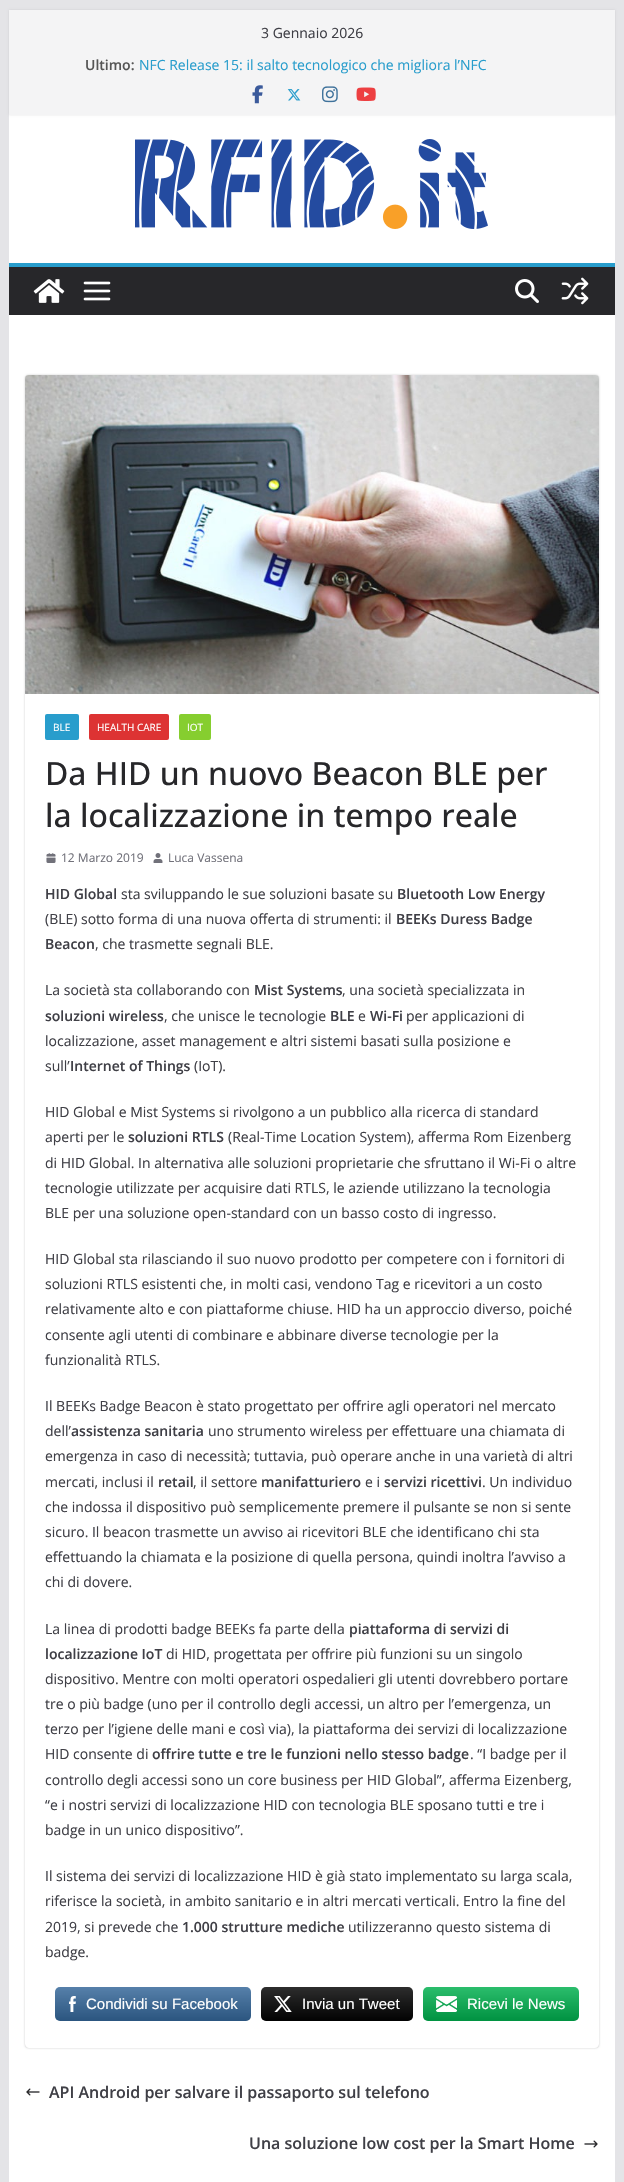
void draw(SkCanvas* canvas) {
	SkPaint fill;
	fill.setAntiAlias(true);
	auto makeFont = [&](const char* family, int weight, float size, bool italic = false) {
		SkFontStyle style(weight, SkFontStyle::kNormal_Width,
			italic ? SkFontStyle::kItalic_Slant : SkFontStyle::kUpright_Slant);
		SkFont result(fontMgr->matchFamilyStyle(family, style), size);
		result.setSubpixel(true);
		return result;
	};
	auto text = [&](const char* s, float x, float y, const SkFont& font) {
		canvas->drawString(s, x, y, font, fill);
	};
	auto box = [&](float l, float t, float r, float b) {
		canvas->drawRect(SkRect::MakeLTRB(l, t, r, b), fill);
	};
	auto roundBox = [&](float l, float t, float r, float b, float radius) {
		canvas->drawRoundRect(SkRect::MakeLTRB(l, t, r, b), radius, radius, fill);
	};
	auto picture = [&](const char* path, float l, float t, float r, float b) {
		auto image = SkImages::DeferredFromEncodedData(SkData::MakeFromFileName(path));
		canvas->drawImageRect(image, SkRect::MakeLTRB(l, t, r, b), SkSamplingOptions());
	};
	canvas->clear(0xFFE4E4E7);
	fill.setColor(0xFFFFFFFF);
	box(9, 115, 615, 263);
	fill.setColor(0x1A000000);
	fill.setMaskFilter(SkMaskFilter::MakeBlur(kNormal_SkBlurStyle, 1));
	canvas->drawRect(SkRect::MakeLTRB(9, 10, 615, 115), fill);
	fill.setMaskFilter(nullptr);
	fill.setColor(0xFFF4F4F5);
	box(9, 10, 615, 115);
	picture("image0.png", 252, 85, 263, 104);
	picture("image1.png", 287, 89, 301, 101);
	picture("image2.png", 322, 86, 338, 103);
	picture("image3.png", 356, 87, 376, 101);
	picture("image4.png", 135, 139, 488, 229);
	fill.setColor(0xFF27272A);
	box(9, 267, 615, 315);
	fill.setColor(0xFF289DCC);
	box(9, 263, 615, 267);
	picture("image5.png", 33, 279, 65, 303);
	picture("image6.png", 83, 281, 111, 301);
	picture("image7.png", 515, 279, 539, 303);
	picture("image8.png", 561, 277, 589, 305);
	fill.setColor(0xFFFFFFFF);
	box(9, 315, 615, 2182);
	canvas->save();
	canvas->clipPath(SkPathBuilder(SkPathFillType::kEvenOdd).moveTo(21, 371).lineTo(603, 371).lineTo(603, 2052).lineTo(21, 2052).close().moveTo(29, 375).lineTo(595, 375).cubicTo(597, 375, 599, 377, 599, 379).lineTo(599, 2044).cubicTo(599, 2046, 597, 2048, 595, 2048).lineTo(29, 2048).cubicTo(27, 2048, 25, 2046, 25, 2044).lineTo(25, 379).cubicTo(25, 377, 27, 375, 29, 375).close().detach(), true);
	fill.setColor(0x3D000000);
	fill.setMaskFilter(SkMaskFilter::MakeBlur(kNormal_SkBlurStyle, 1));
	canvas->drawRoundRect(SkRect::MakeLTRB(25, 375, 599, 2048), 4, 4, fill);
	fill.setMaskFilter(nullptr);
	canvas->restore();
	picture("image9.png", 25, 375, 599, 694);
	fill.setColor(0xFF289DCC);
	roundBox(45, 714, 79, 740, 2);
	fill.setColor(0xFFDD3333);
	roundBox(89, 714, 169, 740, 2);
	fill.setColor(0xFF86CE2F);
	roundBox(179, 714, 211, 740, 2);
	picture("image10.png", 46, 853, 56, 863);
	picture("image11.png", 153, 853, 163, 863);
	fill.setColor(0xFF336699);
	roundBox(55, 1987, 251, 2021, 5);
	{
		const SkColor colors[] = {0x2B000000, 0x2BFFFFFF};
		const float stops[] = {0, 1};
		const SkPoint ends[] = {{153, 2021}, {153, 1987}};
		fill.setShader(SkGradientShader::MakeLinear(ends, colors, stops, 2, SkTileMode::kClamp));
		fill.setAlpha(255);
	}
	roundBox(55, 1987, 251, 2021, 5);
	picture("image12.png", 69, 1996, 76, 2012);
	fill.setShader(nullptr);
	fill.setColor(0xFF020202);
	roundBox(261, 1987, 413, 2021, 5);
	{
		const SkColor colors[] = {0x2B000000, 0x2BFFFFFF};
		const float stops[] = {0, 1};
		const SkPoint ends[] = {{337, 2021}, {337, 1987}};
		fill.setShader(SkGradientShader::MakeLinear(ends, colors, stops, 2, SkTileMode::kClamp));
		fill.setAlpha(255);
	}
	roundBox(261, 1987, 413, 2021, 5);
	picture("image13.png", 274, 1996, 292, 2012);
	fill.setShader(nullptr);
	fill.setColor(0xFF00B04E);
	roundBox(423, 1987, 579, 2021, 5);
	{
		const SkColor colors[] = {0x2B000000, 0x2BFFFFFF};
		const float stops[] = {0, 1};
		const SkPoint ends[] = {{501, 2021}, {501, 1987}};
		fill.setShader(SkGradientShader::MakeLinear(ends, colors, stops, 2, SkTileMode::kClamp));
		fill.setAlpha(255);
	}
	roundBox(423, 1987, 579, 2021, 5);
	picture("image14.png", 436, 1996, 457, 2012);
	picture("image15.png", 26, 2088, 40, 2096);
	picture("image16.png", 584, 2140, 598, 2148);
	auto font1 = makeFont("Open Sans", 400, 14);
	fill.setShader(nullptr);
	fill.setColor(0xFF3F3F46);
	text("3 Gennaio 2026", 261, 38, font1);
	auto font2 = makeFont("Open Sans", 600, 14);
	fill.setColor(0xFF555555);
	text("Ultimo:", 85, 70, font2);
	fill.setColor(0xFF289DCC);
	text("NFC Release 15: il salto tecnologico che migliora l’NFC", 139, 70, font1);
	auto font3 = makeFont("Open Sans", 400, 10);
	fill.setColor(0xFFFFFFFF);
	text("BLE", 53, 731, font3);
	text("HEALTH CARE", 97, 731, font3);
	text("IOT", 187, 731, font3);
	auto font4 = makeFont("Open Sans", 500, 32);
	fill.setColor(0xFF27272A);
	text("Da HID un nuovo Beacon BLE per", 45, 785, font4);
	text("la localizzazione in tempo reale", 45, 827, font4);
	auto font5 = makeFont("Open Sans", 400, 12);
	fill.setColor(0xFF71717A);
	text("12 Marzo 2019", 61, 862, font5);
	text("Luca Vassena", 168, 862, font5);
	fill.setColor(0xFF3F3F46);
	text("HID Global", 45, 899, font2);
	text("sta sviluppando le sue soluzioni basate su", 121, 899, font1);
	text("Bluetooth Low Energy", 397, 899, font2);
	text("(BLE) sotto forma di una nuova offerta di strumenti: il", 45, 924, font1);
	text("BEEKs Duress Badge", 396, 924, font2);
	text("Beacon", 45, 949, font2);
	text(", che trasmette segnali BLE.", 95, 949, font1);
	text("La società sta collaborando con", 45, 995, font1);
	text("Mist Systems", 254, 995, font2);
	text(", una società specializzata in", 342, 995, font1);
	text("soluzioni wireless", 45, 1021, font2);
	text(", che unisce le tecnologie", 164, 1021, font1);
	text("BLE", 330, 1021, font2);
	text("e", 358, 1021, font1);
	text("Wi-Fi", 370, 1021, font2);
	text("per applicazioni di", 406, 1021, font1);
	text("localizzazione, asset management e altri sistemi basati sulla posizione e", 45, 1046, font1);
	text("sull’", 45, 1071, font1);
	text("Internet of Things", 70, 1071, font2);
	text("(IoT).", 194, 1071, font1);
	text("HID Global e Mist Systems si rivolgono a un pubblico alla ricerca di standard", 45, 1117, font1);
	text("aperti per le", 45, 1142, font1);
	text("soluzioni RTLS", 128, 1142, font2);
	text("(Real-Time Location System), afferma Rom Eizenberg", 228, 1142, font1);
	text("di HID Global. In alternativa alle soluzioni proprietarie che sfruttano il Wi-Fi o altre", 45, 1168, font1);
	text("tecnologie utilizzate per acquisire dati RTLS, le aziende utilizzano la tecnologia", 45, 1193, font1);
	text("BLE per una soluzione open-standard con un basso costo di ingresso.", 45, 1218, font1);
	text("HID Global sta rilasciando il suo nuovo prodotto per competere con i fornitori di", 45, 1264, font1);
	text("soluzioni RTLS esistenti che, in molti casi, vendono Tag e ricevitori a un costo", 45, 1289, font1);
	text("relativamente alto e con piattaforme chiuse. HID ha un approccio diverso, poiché", 45, 1314, font1);
	text("consente agli utenti di combinare e abbinare diverse tecnologie per la", 45, 1340, font1);
	text("funzionalità RTLS.", 45, 1365, font1);
	text("Il BEEKs Badge Beacon è stato progettato per offrire agli operatori nel mercato", 45, 1411, font1);
	text("dell’", 45, 1436, font1);
	text("assistenza sanitaria", 71, 1436, font2);
	text("uno strumento wireless per effettuare una chiamata di", 208, 1436, font1);
	text("emergenza in caso di necessità; tuttavia, può operare anche in una varietà di altri", 45, 1461, font1);
	text("mercati, inclusi il", 45, 1487, font1);
	text("retail", 158, 1487, font2);
	text(", il settore", 193, 1487, font1);
	text("manifatturiero", 261, 1487, font2);
	text("e i", 365, 1487, font1);
	text("servizi ricettivi", 384, 1487, font2);
	text(". Un individuo", 482, 1487, font1);
	text("che indossa il dispositivo può semplicemente premere il pulsante se non si sente", 45, 1512, font1);
	text("sicuro. Il beacon trasmette un avviso ai ricevitori BLE che identificano chi sta", 45, 1537, font1);
	text("effettuando la chiamata e la posizione di quella persona, quindi inoltra l’avviso a", 45, 1562, font1);
	text("chi di dovere.", 45, 1587, font1);
	text("La linea di prodotti badge BEEKs fa parte della", 45, 1634, font1);
	text("piattaforma di servizi di", 349, 1634, font2);
	text("localizzazione IoT", 45, 1659, font2);
	text("di HID, progettata per offrire più funzioni su un singolo", 166, 1659, font1);
	text("dispositivo. Mentre con molti operatori ospedalieri gli utenti dovrebbero portare", 45, 1684, font1);
	text("tre o più badge (uno per il controllo degli accessi, un altro per l’emergenza, un", 45, 1709, font1);
	text("terzo per l’igiene delle mani e così via), la piattaforma dei servizi di localizzazione", 45, 1734, font1);
	text("HID consente di", 45, 1759, font1);
	text("offrire tutte e tre le funzioni nello stesso badge", 152, 1759, font2);
	text(". “I badge per il", 470, 1759, font1);
	text("controllo degli accessi sono un core business per HID Global”, afferma Eizenberg,", 45, 1785, font1);
	text("“e i nostri servizi di localizzazione HID con tecnologia BLE sposano tutti e tre i", 45, 1810, font1);
	text("badge in un unico dispositivo”.", 45, 1835, font1);
	text("Il sistema dei servizi di localizzazione HID è già stato implementato su larga scala,", 45, 1881, font1);
	text("riferisce la società, in ambito sanitario e in altri mercati verticali. Entro la fine del", 45, 1906, font1);
	text("2019, si prevede che", 45, 1932, font1);
	text("1.000 strutture mediche", 182, 1932, font2);
	text("utilizzeranno questo sistema di", 348, 1932, font1);
	text("badge.", 45, 1957, font1);
	auto font6 = makeFont("Liberation Sans", 400, 15);
	fill.setColor(0xFFFFFFFF);
	text("Condividi su Facebook", 86, 2009, font6);
	text("Invia un Tweet", 302, 2009, font6);
	text("Ricevi le News", 467, 2009, font6);
	auto font7 = makeFont("Open Sans", 600, 16);
	fill.setColor(0xFF3F3F46);
	text("API Android per salvare il passaporto sul telefono", 49, 2098, font7);
	text("Una soluzione low cost per la Smart Home", 249, 2149, font7);
}
